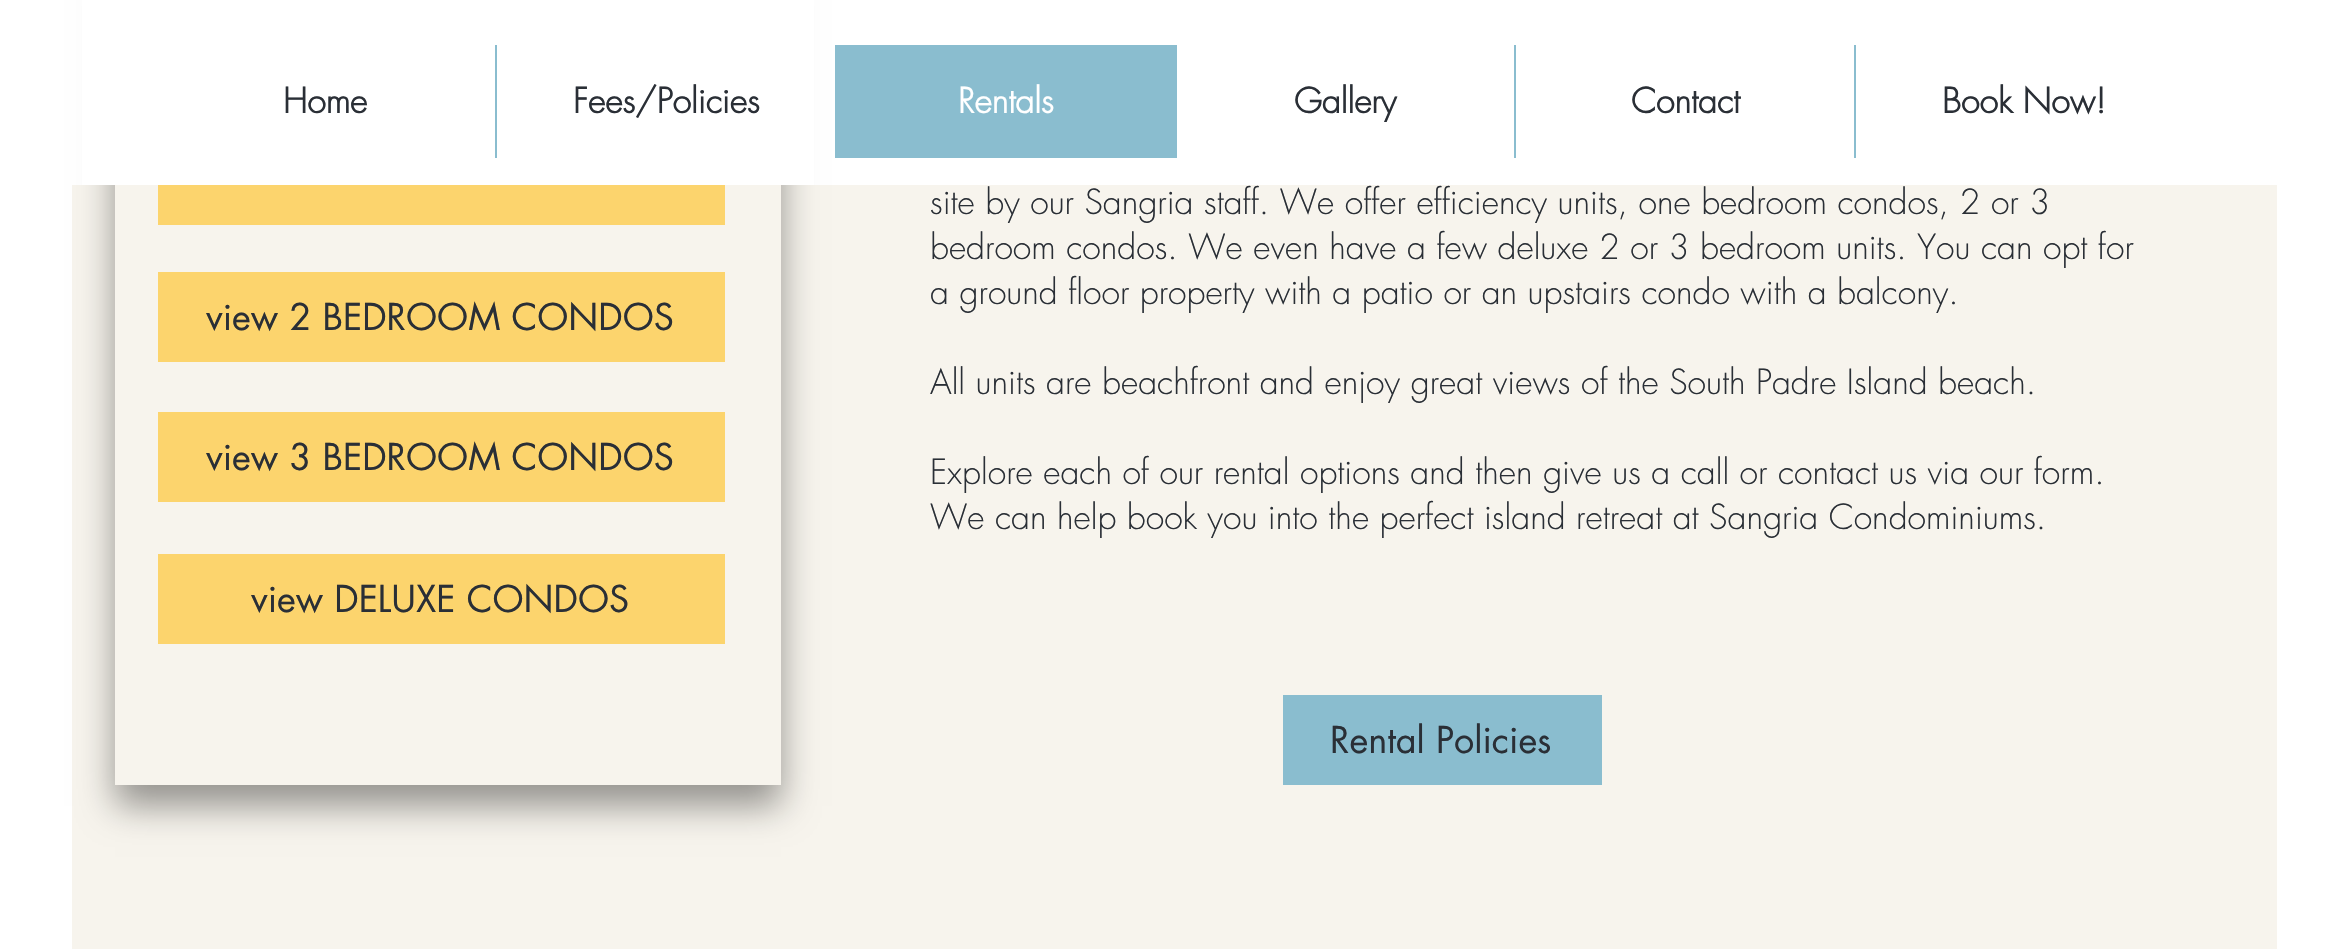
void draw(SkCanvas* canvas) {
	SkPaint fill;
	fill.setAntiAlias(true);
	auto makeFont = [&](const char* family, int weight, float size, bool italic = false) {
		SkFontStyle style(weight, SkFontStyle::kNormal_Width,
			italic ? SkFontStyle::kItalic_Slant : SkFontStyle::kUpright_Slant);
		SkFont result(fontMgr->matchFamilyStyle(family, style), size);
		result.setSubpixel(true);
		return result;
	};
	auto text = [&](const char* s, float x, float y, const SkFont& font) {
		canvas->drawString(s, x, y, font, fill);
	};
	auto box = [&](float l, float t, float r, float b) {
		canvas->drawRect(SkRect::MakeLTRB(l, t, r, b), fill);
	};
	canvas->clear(0xFFFFFFFF);
	fill.setColor(0xFFF7F4ED);
	box(72, 185, 2277, 949);
	canvas->save();
	canvas->clipPath(SkPathBuilder(SkPathFillType::kEvenOdd).moveTo(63, 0).lineTo(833, 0).lineTo(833, 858).lineTo(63, 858).close().moveTo(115, -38).lineTo(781, -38).lineTo(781, 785).lineTo(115, 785).close().detach(), true);
	fill.setColor(0x66000000);
	fill.setMaskFilter(SkMaskFilter::MakeBlur(kNormal_SkBlurStyle, 17));
	canvas->drawRect(SkRect::MakeLTRB(115, -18, 781, 806), fill);
	fill.setMaskFilter(nullptr);
	canvas->restore();
	fill.setColor(0xFFFFFFFF);
	box(82, 0, 814, 185);
	fill.setColor(0xFF8ABDCF);
	box(495, 45, 497, 158);
	box(835, 45, 1177, 158);
	box(1514, 45, 1516, 158);
	box(1854, 45, 1856, 158);
	fill.setColor(0xA3F7F4ED);
	box(780, 185, 781, 785);
	fill.setColor(0xFFFCD46D);
	box(158, 185, 725, 225);
	box(158, 272, 725, 362);
	box(158, 412, 725, 502);
	box(158, 554, 725, 644);
	fill.setColor(0xFF8ABDCF);
	box(1283, 695, 1602, 785);
	auto font1 = makeFont("futura", 700, 33.75f);
	fill.setColor(0xFF2A2F36);
	text("Home", 283, 113, font1);
	text("Fees/Policies", 573, 113, font1);
	fill.setColor(0xFFFFFFFF);
	text("Rentals", 958, 113, font1);
	fill.setColor(0xFF2A2F36);
	text("Gallery", 1294, 113, font1);
	text("Contact", 1631, 113, font1);
	text("Book Now!", 1942, 113, font1);
	auto font2 = makeFont("futura", 300, 33.75f);
	text("site by our Sangria staff. We offer efficiency units, one bedroom condos, 2 or 3", 930, 214, font2);
	text("bedroom condos. We even have a few deluxe 2 or 3 bedroom units. You can opt for", 930, 259, font2);
	text("a ground floor property with a patio or an upstairs condo with a balcony.", 930, 304, font2);
	text("All units are beachfront and enjoy great views of the South Padre Island beach.", 930, 394, font2);
	text("Explore each of our rental options and then give us a call or contact us via our form.", 930, 484, font2);
	text("We can help book you into the perfect island retreat at Sangria Condominiums.", 930, 529, font2);
	auto font3 = makeFont("futura", 400, 36);
	text("view 2 BEDROOM CONDOS", 206, 330, font3);
	text("view 3 BEDROOM CONDOS", 206, 470, font3);
	text("view DELUXE CONDOS", 251, 612, font3);
	text("Rental Policies", 1330, 753, font3);
}
